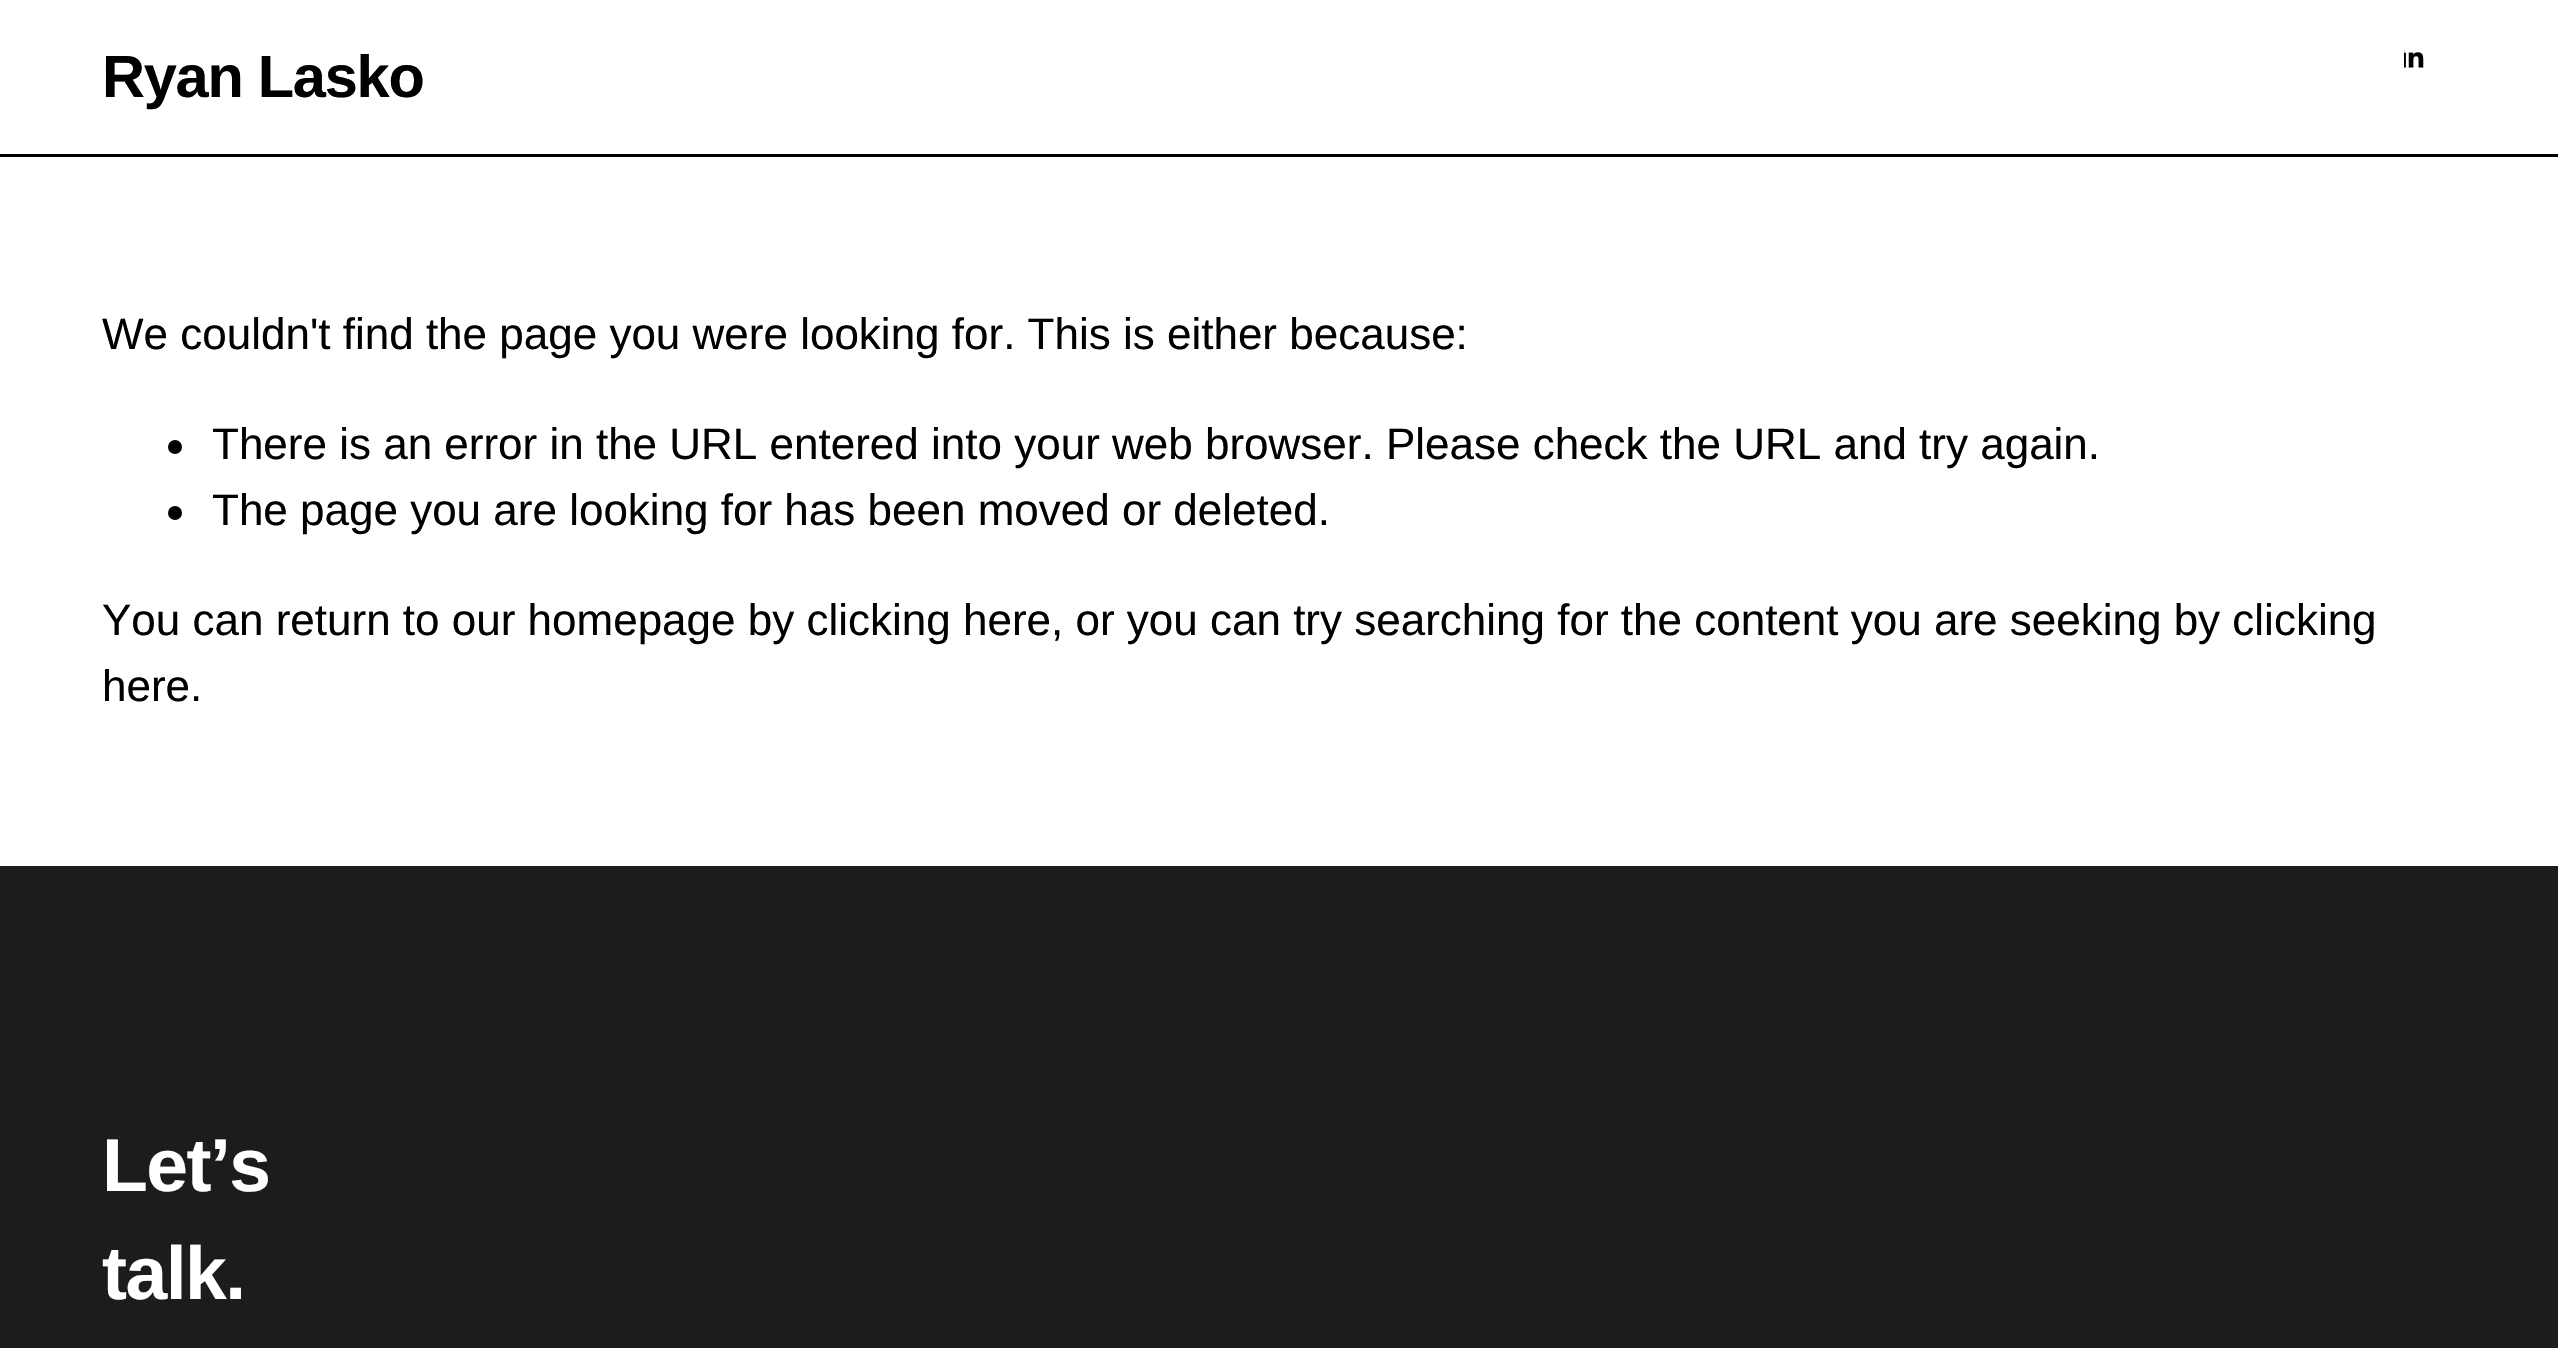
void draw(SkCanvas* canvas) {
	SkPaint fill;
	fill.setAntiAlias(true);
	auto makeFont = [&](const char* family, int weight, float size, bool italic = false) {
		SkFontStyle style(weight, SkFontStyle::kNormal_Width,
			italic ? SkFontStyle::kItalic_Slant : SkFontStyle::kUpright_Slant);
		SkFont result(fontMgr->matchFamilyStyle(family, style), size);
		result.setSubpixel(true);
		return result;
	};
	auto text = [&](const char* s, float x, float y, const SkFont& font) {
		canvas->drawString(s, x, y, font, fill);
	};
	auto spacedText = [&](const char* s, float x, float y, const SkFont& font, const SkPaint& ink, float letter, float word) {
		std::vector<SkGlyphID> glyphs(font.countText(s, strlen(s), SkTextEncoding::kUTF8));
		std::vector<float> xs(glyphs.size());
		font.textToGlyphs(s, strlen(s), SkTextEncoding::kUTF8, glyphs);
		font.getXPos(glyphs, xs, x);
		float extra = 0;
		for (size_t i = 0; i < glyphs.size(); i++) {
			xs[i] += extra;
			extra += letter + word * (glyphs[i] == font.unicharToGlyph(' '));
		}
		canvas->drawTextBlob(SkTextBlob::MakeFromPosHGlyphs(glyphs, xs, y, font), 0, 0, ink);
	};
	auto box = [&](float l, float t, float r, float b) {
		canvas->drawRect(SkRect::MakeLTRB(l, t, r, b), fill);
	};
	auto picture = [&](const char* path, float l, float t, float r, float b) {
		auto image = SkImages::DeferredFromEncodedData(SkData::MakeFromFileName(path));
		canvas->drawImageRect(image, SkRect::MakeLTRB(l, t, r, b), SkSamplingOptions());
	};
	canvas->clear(0xFFFFFFFF);
	picture("image0.png", 2404, 50, 2424, 68);
	fill.setColor(0xFF000000);
	box(0, 154, 2558, 157);
	canvas->drawCircle(175, 447, 7, fill);
	canvas->drawCircle(175, 513, 7, fill);
	fill.setColor(0xFF1C1C1C);
	box(0, 866, 2558, 1348);
	auto font1 = makeFont("Liberation Sans", 700, 59.5f);
	fill.setColor(0xFF000000);
	spacedText("Ryan Lasko", 102, 97, font1, fill, -1.25f, 0);
	auto font2 = makeFont("Liberation Sans", 400, 44);
	text("We couldn't find the page you were looking for. This is either because:", 102, 349, font2);
	text("There is an error in the URL entered into your web browser. Please check the URL and try again.", 212, 459, font2);
	text("The page you are looking for has been moved or deleted.", 212, 525, font2);
	text("You can return to our homepage by clicking here, or you can try searching for the content you are seeking by clicking", 102, 635, font2);
	text("here.", 102, 701, font2);
	auto font3 = makeFont("Liberation Sans", 700, 75);
	fill.setColor(0xFFFFFFFF);
	spacedText("Let’s", 102, 1191, font3, fill, -1.5f, 0);
	spacedText("talk.", 102, 1299, font3, fill, -1.5f, 0);
}
